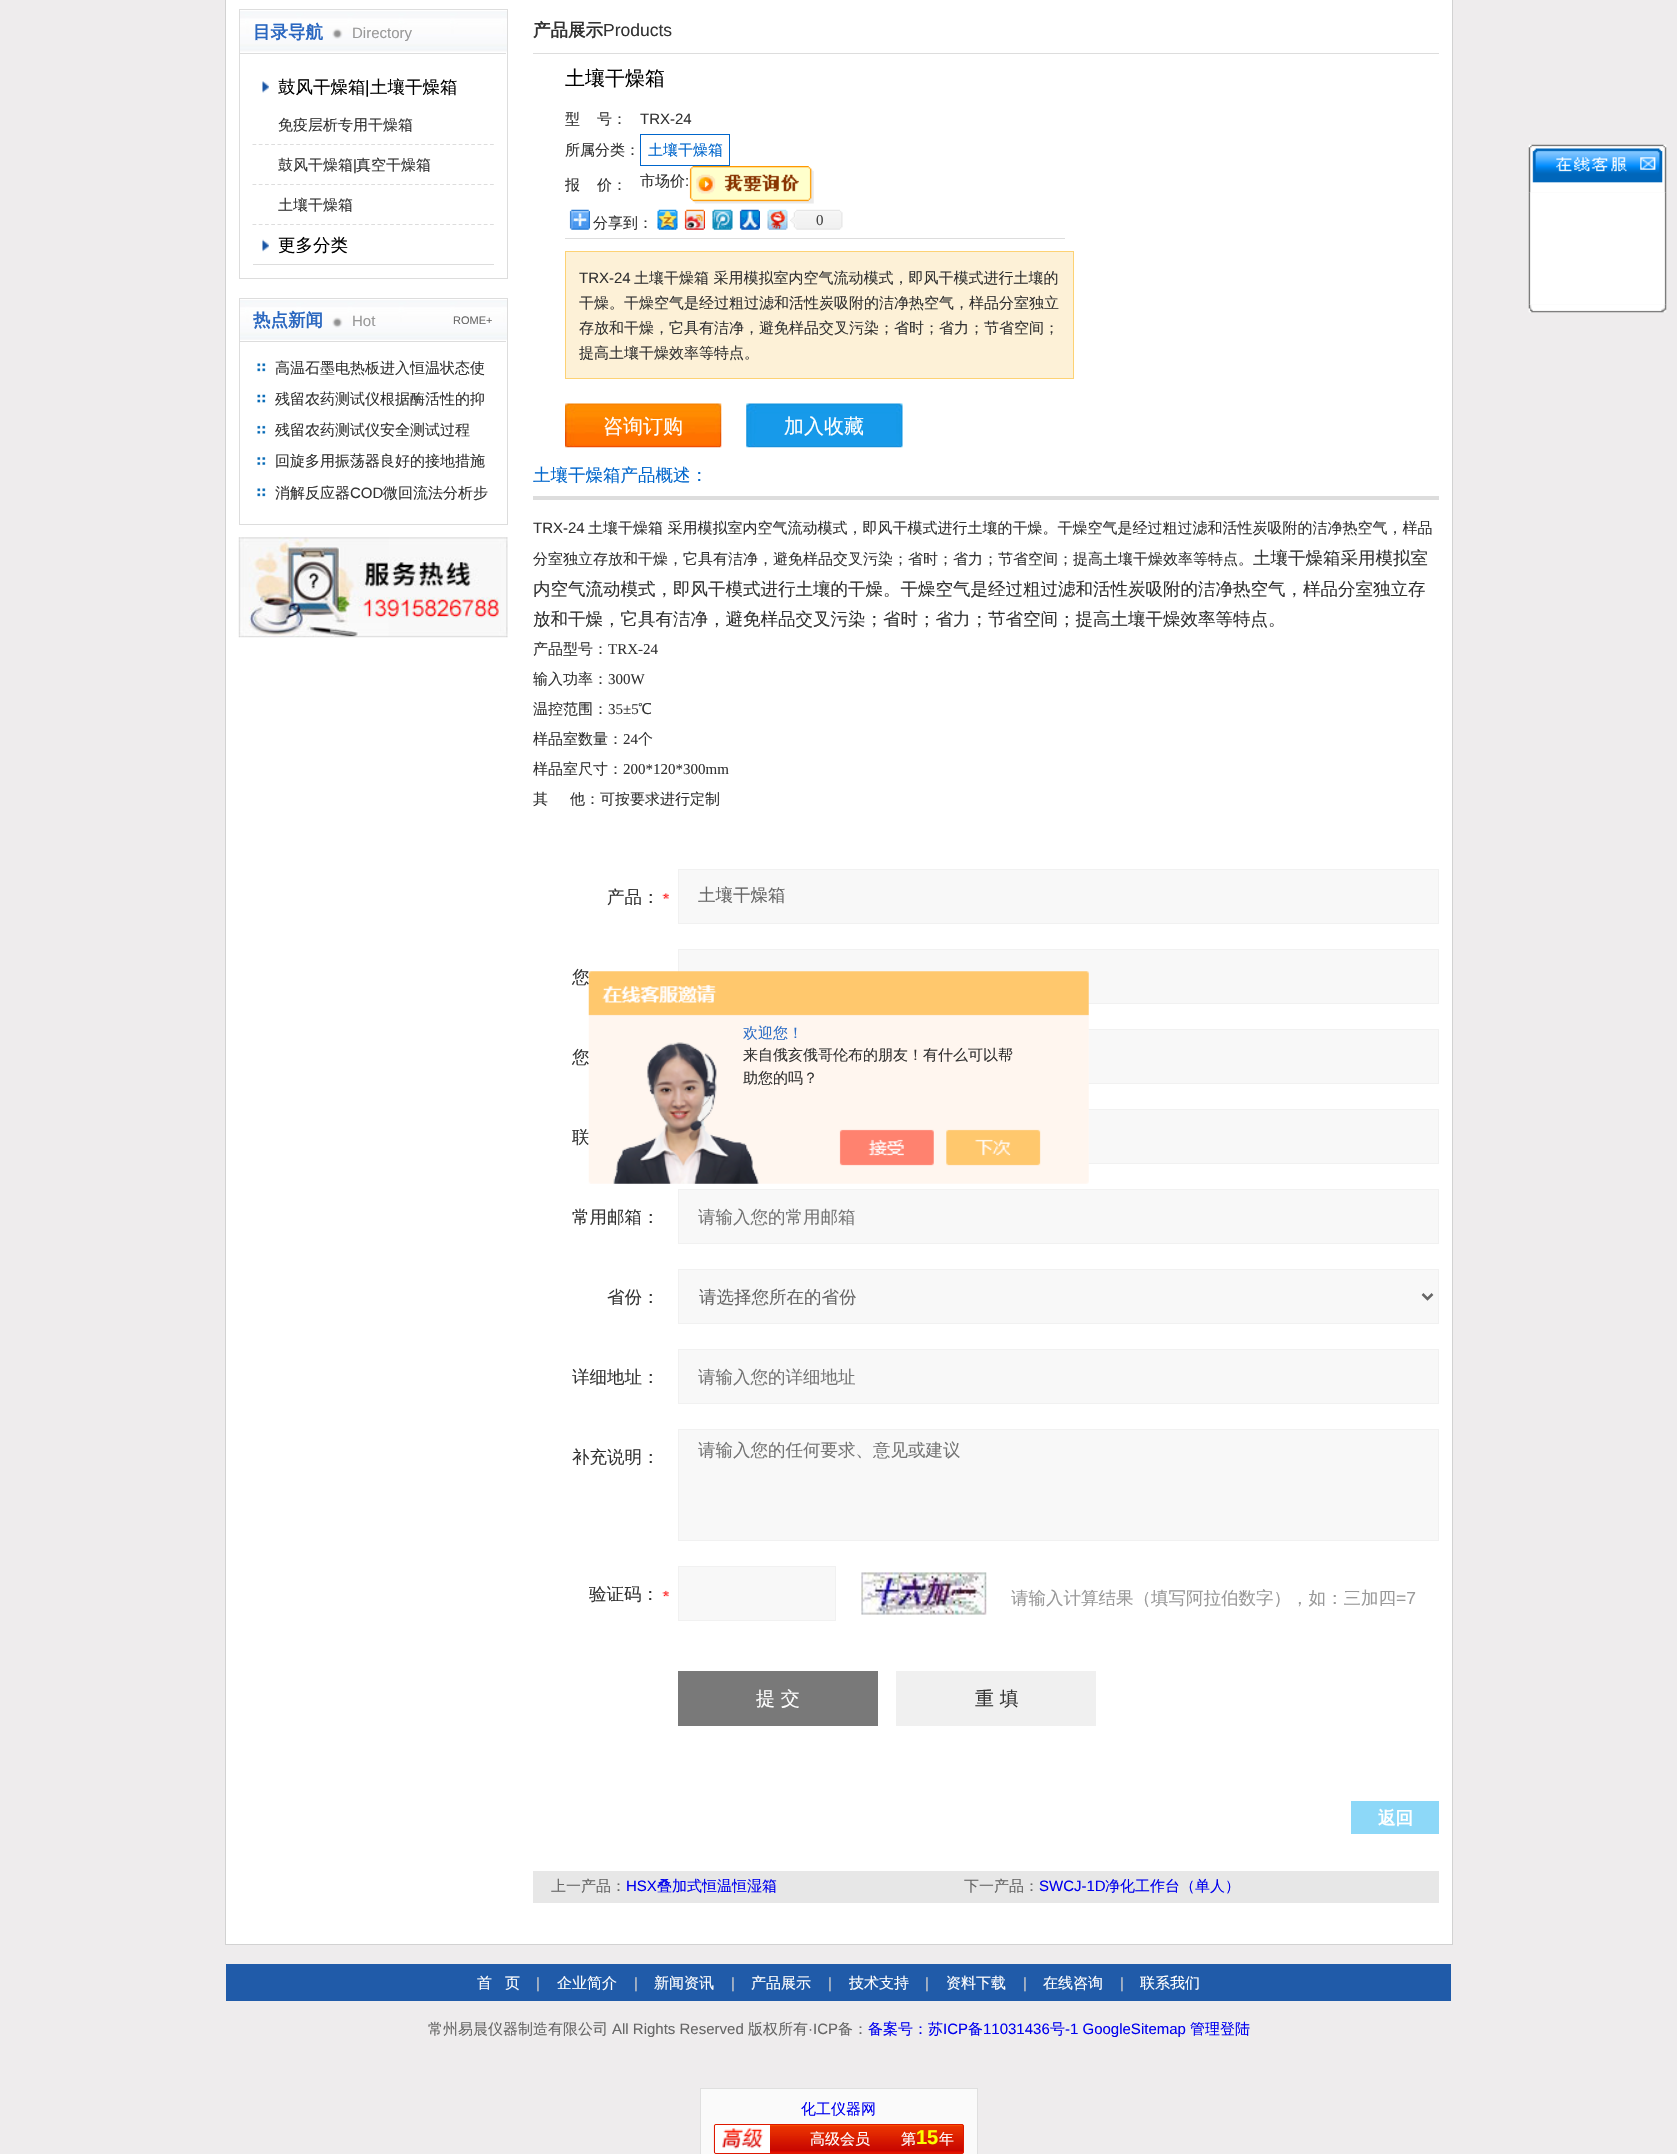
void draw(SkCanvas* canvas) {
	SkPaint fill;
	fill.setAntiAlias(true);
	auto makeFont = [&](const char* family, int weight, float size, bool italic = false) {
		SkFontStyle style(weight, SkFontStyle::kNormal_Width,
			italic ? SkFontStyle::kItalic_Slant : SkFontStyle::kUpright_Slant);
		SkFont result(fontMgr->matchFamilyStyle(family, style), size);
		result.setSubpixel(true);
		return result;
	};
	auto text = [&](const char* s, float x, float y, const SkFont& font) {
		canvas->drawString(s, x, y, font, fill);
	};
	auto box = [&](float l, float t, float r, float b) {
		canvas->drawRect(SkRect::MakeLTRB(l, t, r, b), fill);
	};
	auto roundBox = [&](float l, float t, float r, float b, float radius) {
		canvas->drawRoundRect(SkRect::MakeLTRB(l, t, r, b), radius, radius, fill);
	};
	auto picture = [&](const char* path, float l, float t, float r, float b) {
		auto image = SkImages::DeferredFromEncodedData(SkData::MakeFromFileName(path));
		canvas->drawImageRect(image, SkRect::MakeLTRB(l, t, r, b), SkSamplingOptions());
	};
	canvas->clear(0xFFEEECED);
	fill.setColor(0xFFFFFFFF);
	canvas->drawRect(SkRect::MakeLTRB(225.5f, -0.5f, 1452.5f, 1944.5f), fill);
	fill.setStyle(SkPaint::kStroke_Style);
	fill.setStrokeWidth(1);
	fill.setColor(0xFFD2D2D2);
	canvas->drawRect(SkRect::MakeLTRB(225.5f, -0.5f, 1452.5f, 1944.5f), fill);
	picture("image0.png", 240, 11, 507, 52);
	fill.setColor(0xFFDDDDDD);
	canvas->drawRect(SkRect::MakeLTRB(239.5f, 9.5f, 507.5f, 278.5f), fill);
	picture("image1.png", 332, 28, 343, 39);
	fill.setStyle(SkPaint::kFill_Style);
	box(240, 53, 506, 54);
	picture("image2.png", 262, 81, 269, 93);
	fill.setStyle(SkPaint::kStroke_Style);
	fill.setStrokeWidth(1.2f);
	fill.setPathEffect(SkDashPathEffect::Make({{3.75f, 2.5f}}, 0));
	canvas->drawPath(SkPathBuilder().moveTo(252.5f, 144.5f).lineTo(494, 144.5f).detach(), fill);
	fill.setPathEffect(nullptr);
	fill.setPathEffect(SkDashPathEffect::Make({{3.75f, 2.5f}}, 0));
	canvas->drawPath(SkPathBuilder().moveTo(252.5f, 184.5f).lineTo(494, 184.5f).detach(), fill);
	fill.setPathEffect(nullptr);
	fill.setPathEffect(SkDashPathEffect::Make({{3.75f, 2.5f}}, 0));
	canvas->drawPath(SkPathBuilder().moveTo(252.5f, 224.5f).lineTo(494, 224.5f).detach(), fill);
	fill.setPathEffect(nullptr);
	picture("image3.png", 262, 239, 269, 252);
	fill.setStyle(SkPaint::kFill_Style);
	box(253, 264, 494, 265);
	picture("image4.png", 240, 300, 507, 340);
	fill.setStyle(SkPaint::kStroke_Style);
	fill.setStrokeWidth(1);
	canvas->drawRect(SkRect::MakeLTRB(239.5f, 298.5f, 507.5f, 524.5f), fill);
	picture("image5.png", 332, 317, 343, 328);
	fill.setStyle(SkPaint::kFill_Style);
	box(240, 341, 506, 342);
	picture("image6.png", 257, 363, 266, 372);
	picture("image7.png", 257, 394, 266, 403);
	picture("image8.png", 257, 425, 266, 434);
	picture("image9.png", 257, 457, 266, 465);
	picture("image6.png", 257, 488, 266, 497);
	picture("image10.png", 238, 537, 508, 638);
	box(533, 53, 1439, 54);
	fill.setStyle(SkPaint::kStroke_Style);
	fill.setColor(0xFF0066CC);
	canvas->drawRect(SkRect::MakeLTRB(640.5f, 134.5f, 729.5f, 165.5f), fill);
	picture("image11.png", 689, 166, 814, 204);
	fill.setStyle(SkPaint::kFill_Style);
	fill.setColor(0xFFDDDDDD);
	box(565, 238, 1065, 239);
	picture("image12.png", 569, 209, 590, 230);
	picture("image13.png", 657, 209, 678, 230);
	picture("image14.png", 684, 209, 705, 230);
	picture("image15.png", 712, 209, 733, 230);
	picture("image16.png", 739, 209, 760, 230);
	picture("image17.png", 767, 209, 788, 230);
	picture("image18.png", 790, 209, 843, 230);
	fill.setColor(0xFFFDF1D7);
	canvas->drawRect(SkRect::MakeLTRB(565.5f, 251.5f, 1073.5f, 378.5f), fill);
	fill.setStyle(SkPaint::kStroke_Style);
	fill.setColor(0xFFFDD274);
	canvas->drawRect(SkRect::MakeLTRB(565.5f, 251.5f, 1073.5f, 378.5f), fill);
	picture("image19.png", 565, 403, 722, 448);
	picture("image20.png", 746, 403, 903, 448);
	fill.setStyle(SkPaint::kFill_Style);
	fill.setColor(0xFFDDDDDD);
	box(533, 496, 1439, 500);
	picture("image21.png", 662, 893, 669, 899);
	fill.setColor(0xFFF8F8F8);
	canvas->drawRect(SkRect::MakeLTRB(678.5f, 869.5f, 1438.5f, 923.5f), fill);
	fill.setStyle(SkPaint::kStroke_Style);
	fill.setColor(0xFFF1F1F1);
	canvas->drawRect(SkRect::MakeLTRB(678.5f, 869.5f, 1438.5f, 923.5f), fill);
	fill.setStyle(SkPaint::kFill_Style);
	fill.setColor(0xFFF8F8F8);
	canvas->drawRect(SkRect::MakeLTRB(678.5f, 949.5f, 1438.5f, 1003.5f), fill);
	fill.setStyle(SkPaint::kStroke_Style);
	fill.setColor(0xFFF1F1F1);
	canvas->drawRect(SkRect::MakeLTRB(678.5f, 949.5f, 1438.5f, 1003.5f), fill);
	fill.setStyle(SkPaint::kFill_Style);
	fill.setColor(0xFFF8F8F8);
	box(1088, 1030, 1438, 1083);
	fill.setStyle(SkPaint::kStroke_Style);
	fill.setColor(0xFFF1F1F1);
	canvas->drawRect(SkRect::MakeLTRB(678.5f, 1029.5f, 1438.5f, 1083.5f), fill);
	fill.setStyle(SkPaint::kFill_Style);
	fill.setColor(0xFFF8F8F8);
	box(1088, 1110, 1438, 1163);
	fill.setStyle(SkPaint::kStroke_Style);
	fill.setColor(0xFFF1F1F1);
	canvas->drawRect(SkRect::MakeLTRB(678.5f, 1109.5f, 1438.5f, 1163.5f), fill);
	fill.setStyle(SkPaint::kFill_Style);
	fill.setColor(0xFFF8F8F8);
	canvas->drawRect(SkRect::MakeLTRB(678.5f, 1189.5f, 1438.5f, 1243.5f), fill);
	fill.setStyle(SkPaint::kStroke_Style);
	fill.setColor(0xFFF1F1F1);
	canvas->drawRect(SkRect::MakeLTRB(678.5f, 1189.5f, 1438.5f, 1243.5f), fill);
	fill.setStyle(SkPaint::kFill_Style);
	fill.setColor(0xFFF8F8F8);
	canvas->drawRect(SkRect::MakeLTRB(678.5f, 1269.5f, 1438.5f, 1323.5f), fill);
	fill.setStyle(SkPaint::kStroke_Style);
	fill.setColor(0xFFF1F1F1);
	canvas->drawRect(SkRect::MakeLTRB(678.5f, 1269.5f, 1438.5f, 1323.5f), fill);
	fill.setStrokeWidth(2.5f);
	fill.setColor(0xFF666666);
	canvas->drawPath(SkPathBuilder().moveTo(1422.5f, 1294).lineTo(1427.5f, 1299).lineTo(1432.5f, 1294).detach(), fill);
	fill.setStyle(SkPaint::kFill_Style);
	fill.setColor(0xFFF8F8F8);
	canvas->drawRect(SkRect::MakeLTRB(678.5f, 1349.5f, 1438.5f, 1403.5f), fill);
	fill.setStyle(SkPaint::kStroke_Style);
	fill.setStrokeWidth(1);
	fill.setColor(0xFFF1F1F1);
	canvas->drawRect(SkRect::MakeLTRB(678.5f, 1349.5f, 1438.5f, 1403.5f), fill);
	fill.setStyle(SkPaint::kFill_Style);
	fill.setColor(0xFFF8F8F8);
	canvas->drawRect(SkRect::MakeLTRB(678.5f, 1429.5f, 1438.5f, 1540.5f), fill);
	fill.setStyle(SkPaint::kStroke_Style);
	fill.setColor(0xFFF1F1F1);
	canvas->drawRect(SkRect::MakeLTRB(678.5f, 1429.5f, 1438.5f, 1540.5f), fill);
	picture("image22.png", 662, 1590, 669, 1597);
	fill.setStyle(SkPaint::kFill_Style);
	fill.setColor(0xFFF8F8F8);
	canvas->drawRect(SkRect::MakeLTRB(678.5f, 1566.5f, 835.5f, 1620.5f), fill);
	fill.setStyle(SkPaint::kStroke_Style);
	fill.setColor(0xFFF1F1F1);
	canvas->drawRect(SkRect::MakeLTRB(678.5f, 1566.5f, 835.5f, 1620.5f), fill);
	picture("image23.png", 861, 1572, 987, 1615);
	fill.setStyle(SkPaint::kFill_Style);
	fill.setColor(0xFF797979);
	box(678, 1671, 878, 1726);
	fill.setColor(0xFFF0F0F0);
	box(896, 1671, 1096, 1726);
	fill.setColor(0xFF8DD8F8);
	box(1351, 1801, 1439, 1834);
	fill.setColor(0xFFE7E7E7);
	box(533, 1871, 1439, 1903);
	picture("image25.png", 1528, 192, 1667, 305);
	picture("image24.png", 1528, 144, 1667, 193);
	picture("image26.png", 1528, 304, 1667, 313);
	fill.setColor(0xFF205BA9);
	box(226, 1964, 1451, 2001);
	fill.setColor(0xFFFAFAFA);
	canvas->drawRect(SkRect::MakeLTRB(700.5f, 2088.5f, 977.5f, 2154.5f), fill);
	fill.setStyle(SkPaint::kStroke_Style);
	fill.setColor(0xFFDFDFDF);
	canvas->drawRect(SkRect::MakeLTRB(700.5f, 2088.5f, 977.5f, 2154.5f), fill);
	fill.setStyle(SkPaint::kFill_Style);
	fill.setColor(0xFFDF1700);
	roundBox(714, 2124, 964, 2154, 2.5f);
	picture("image28.png", 713, 2124, 964, 2153);
	fill.setStyle(SkPaint::kStroke_Style);
	canvas->drawRoundRect(SkRect::MakeLTRB(714.5f, 2124.5f, 963.5f, 2153.5f), 2, 2, fill);
	fill.setStyle(SkPaint::kFill_Style);
	fill.setColor(0xFFFFFFFF);
	canvas->drawPath(SkPathBuilder().moveTo(716, 2125).lineTo(770, 2125).lineTo(770, 2153).lineTo(716, 2153).cubicTo(715.5f, 2153, 715, 2152.5f, 715, 2152).lineTo(715, 2126).cubicTo(715, 2125.5f, 715.5f, 2125, 716, 2125).close().detach(), fill);
	picture("image29.png", 722, 2128, 763, 2149);
	auto font1 = makeFont("WenQuanYi Zen Hei", 700, 17.5f);
	fill.setColor(0xFF2A67C0);
	text("目录导航", 253, 38, font1);
	auto font2 = makeFont("Liberation Sans", 400, 15);
	fill.setColor(0xFF999999);
	text("Directory", 352, 38, font2);
	auto font3 = makeFont("WenQuanYi Zen Hei", 500, 17.5f);
	fill.setColor(0xFF000000);
	text("鼓风干燥箱", 278, 93, font3);
	auto font4 = makeFont("Liberation Sans", 400, 17.5f);
	text("|", 365, 93, font4);
	text("土壤干燥箱", 370, 93, font3);
	auto font5 = makeFont("WenQuanYi Zen Hei", 500, 15);
	fill.setColor(0xFF333333);
	text("免疫层析专用干燥箱", 278, 130, font5);
	text("鼓风干燥箱", 278, 170, font5);
	text("|", 353, 170, font2);
	text("真空干燥箱", 356, 170, font5);
	text("土壤干燥箱", 278, 210, font5);
	fill.setColor(0xFF000000);
	text("更多分类", 278, 251, font3);
	fill.setColor(0xFF2A67C0);
	text("热点新闻", 253, 326, font1);
	fill.setColor(0xFF999999);
	text("Hot", 352, 326, font2);
	auto font6 = makeFont("Liberation Sans", 400, 11);
	fill.setColor(0xFF666666);
	text("ROME+", 453, 324, font6);
	fill.setColor(0xFF333333);
	text("高温石墨电热板进入恒温状态使", 275, 373, font5);
	text("残留农药测试仪根据酶活性的抑", 275, 404, font5);
	text("残留农药测试仪安全测试过程", 275, 435, font5);
	text("回旋多用振荡器良好的接地措施", 275, 466, font5);
	text("消解反应器", 275, 498, font5);
	text("COD", 350, 498, font2);
	text("微回流法分析步", 383, 498, font5);
	text("产品展示", 533, 36, font1);
	text("Products", 603, 36, font4);
	auto font7 = makeFont("WenQuanYi Zen Hei", 500, 20);
	fill.setColor(0xFF000000);
	text("土壤干燥箱", 565, 85, font7);
	fill.setColor(0xFF333333);
	text("型", 565, 124, font5);
	text("号：", 597, 124, font5);
	text("TRX-24", 640, 124, font2);
	text("所属分类：", 565, 155, font5);
	fill.setColor(0xFF0066CC);
	text("土壤干燥箱", 648, 155, font5);
	fill.setColor(0xFF333333);
	text("报", 565, 190, font5);
	text("价：", 597, 190, font5);
	text("市场价", 640, 186, font5);
	text(":", 685, 186, font2);
	text("分享到：", 593, 228, font5);
	auto font8 = makeFont("Liberation Serif", 400, 15);
	fill.setColor(0xFF454545);
	text("0", 816, 225, font8);
	fill.setColor(0xFF333333);
	text("TRX-24", 579, 283, font2);
	text("土壤干燥箱 采用模拟室内空气流动模式，即风干模式进行土壤的", 634, 283, font5);
	text("干燥。干燥空气是经过粗过滤和活性炭吸附的洁净热空气，样品分室独立", 579, 308, font5);
	text("存放和干燥，它具有洁净，避免样品交叉污染；省时；省力；节省空间；", 579, 333, font5);
	text("提高土壤干燥效率等特点。", 579, 358, font5);
	fill.setColor(0xFFFFFFFF);
	text("咨询订购", 603, 433, font7);
	text("加入收藏", 784, 433, font7);
	fill.setColor(0xFF0066CC);
	text("土壤干燥箱产品概述：", 533, 481, font3);
	fill.setColor(0xFF333333);
	text("TRX-24", 533, 533, font2);
	text("土壤干燥箱 采用模拟室内空气流动模式，即风干模式进行土壤的干燥。干燥空气是经过粗过滤和活性炭吸附的洁净热空气，样品", 588, 533, font5);
	text("分室独立存放和干燥，它具有洁净，避免样品交叉污染；省时；省力；节省空间；提高土壤干燥效率等特点。", 533, 564, font5);
	text("土壤干燥箱采用模拟室", 1253, 564, font3);
	text("内空气流动模式，即风干模式进行土壤的干燥。干燥空气是经过粗过滤和活性炭吸附的洁净热空气，样品分室独立存", 533, 595, font3);
	text("放和干燥，它具有洁净，避免样品交叉污染；省时；省力；节省空间；提高土壤干燥效率等特点。", 533, 625, font3);
	text("产品型号：", 533, 654, font5);
	text("TRX-24", 608, 654, font8);
	text("输入功率：", 533, 684, font5);
	text("300W", 608, 684, font8);
	text("温控范围：", 533, 714, font5);
	text("35±5", 608, 714, font8);
	text("℃", 638, 714, font5);
	text("样品室数量：", 533, 744, font5);
	text("24", 623, 744, font8);
	text("个", 638, 744, font5);
	text("样品室尺寸：", 533, 774, font5);
	text("200*120*300mm", 623, 774, font8);
	text("其", 533, 804, font5);
	text("他：可按要求进行定制", 570, 804, font5);
	text("产品：", 607, 903, font3);
	fill.setColor(0xFF666666);
	text("土壤干燥箱", 698, 901, font3);
	fill.setColor(0xFF333333);
	text("您", 572, 983, font3);
	text("您", 572, 1063, font3);
	text("联", 572, 1143, font3);
	text("常用邮箱：", 572, 1223, font3);
	fill.setColor(0xFF757575);
	text("请输入您的常用邮箱", 698, 1223, font3);
	fill.setColor(0xFF333333);
	text("省份：", 607, 1303, font3);
	fill.setColor(0xFF666666);
	text("请选择您所在的省份", 699, 1303, font3);
	fill.setColor(0xFF333333);
	text("详细地址：", 572, 1383, font3);
	fill.setColor(0xFF757575);
	text("请输入您的详细地址", 698, 1383, font3);
	fill.setColor(0xFF333333);
	text("补充说明：", 572, 1463, font3);
	fill.setColor(0xFF757575);
	text("请输入您的任何要求、意见或建议", 698, 1456, font3);
	fill.setColor(0xFF333333);
	text("验证码：", 589, 1600, font3);
	fill.setColor(0xFF999999);
	text("请输入计算结果（填写阿拉伯数字），如：三加四", 1011, 1604, font3);
	text("=7", 1396, 1604, font4);
	auto font9 = makeFont("WenQuanYi Zen Hei", 500, 19);
	fill.setColor(0xFFFFFFFF);
	text("提 交", 756, 1705, font9);
	fill.setColor(0xFF333333);
	text("重 填", 975, 1705, font9);
	fill.setColor(0xFFFFFFFF);
	text("返回", 1378, 1824, font1);
	fill.setColor(0xFF666666);
	text("上一产品：", 551, 1891, font5);
	fill.setColor(0xFF0000EE);
	text("HSX", 626, 1891, font2);
	text("叠加式恒温恒湿箱", 657, 1891, font5);
	fill.setColor(0xFF666666);
	text("下一产品：", 964, 1891, font5);
	fill.setColor(0xFF0000EE);
	text("SWCJ-1D", 1039, 1891, font2);
	text("净化工作台（单人）", 1105, 1891, font5);
	picture("image27.png", 588, 971, 1089, 1184);
	fill.setColor(0xFF2E6EC6);
	text("欢迎您！", 743, 1038, font5);
	fill.setColor(0xFF333333);
	text("来自俄亥俄哥伦布的朋友！有什么可以帮", 743, 1060, font5);
	text("助您的吗？", 743, 1083, font5);
	fill.setColor(0xFFFFFFFF);
	text("首", 477, 1988, font5);
	text("页", 505, 1988, font5);
	fill.setColor(0xFFCCCCCC);
	text("|", 536, 1988, font2);
	fill.setColor(0xFFFFFFFF);
	text("企业简介", 557, 1988, font5);
	fill.setColor(0xFFCCCCCC);
	text("|", 634, 1988, font2);
	fill.setColor(0xFFFFFFFF);
	text("新闻资讯", 654, 1988, font5);
	fill.setColor(0xFFCCCCCC);
	text("|", 731, 1988, font2);
	fill.setColor(0xFFFFFFFF);
	text("产品展示", 751, 1988, font5);
	fill.setColor(0xFFCCCCCC);
	text("|", 828, 1988, font2);
	fill.setColor(0xFFFFFFFF);
	text("技术支持", 849, 1988, font5);
	fill.setColor(0xFFCCCCCC);
	text("|", 925, 1988, font2);
	fill.setColor(0xFFFFFFFF);
	text("资料下载", 946, 1988, font5);
	fill.setColor(0xFFCCCCCC);
	text("|", 1023, 1988, font2);
	fill.setColor(0xFFFFFFFF);
	text("在线咨询", 1043, 1988, font5);
	fill.setColor(0xFFCCCCCC);
	text("|", 1120, 1988, font2);
	fill.setColor(0xFFFFFFFF);
	text("联系我们", 1140, 1988, font5);
	fill.setColor(0xFF666666);
	text("常州易晨仪器制造有限公司", 428, 2034, font5);
	text("All Rights Reserved", 612, 2034, font2);
	text("版权所有", 748, 2034, font5);
	text("·ICP", 808, 2034, font2);
	text("备：", 838, 2034, font5);
	fill.setColor(0xFF0000EE);
	text("备案号：苏", 868, 2034, font5);
	text("ICP", 943, 2034, font2);
	text("备", 968, 2034, font5);
	text("11031436", 983, 2034, font2);
	text("号", 1050, 2034, font5);
	text("-1 GoogleSitemap", 1065, 2034, font2);
	text("管理登陆", 1190, 2034, font5);
	text("化工仪器网", 801, 2114, font5);
	fill.setColor(0xFFFFFFFF);
	text("高级会员", 810, 2144, font5);
	text("第", 901, 2144, font5);
	auto font10 = makeFont("Liberation Sans", 700, 20);
	fill.setColor(0xFFFCFF00);
	text("15", 916, 2144, font10);
	fill.setColor(0xFFFFFFFF);
	text("年", 939, 2144, font5);
}
